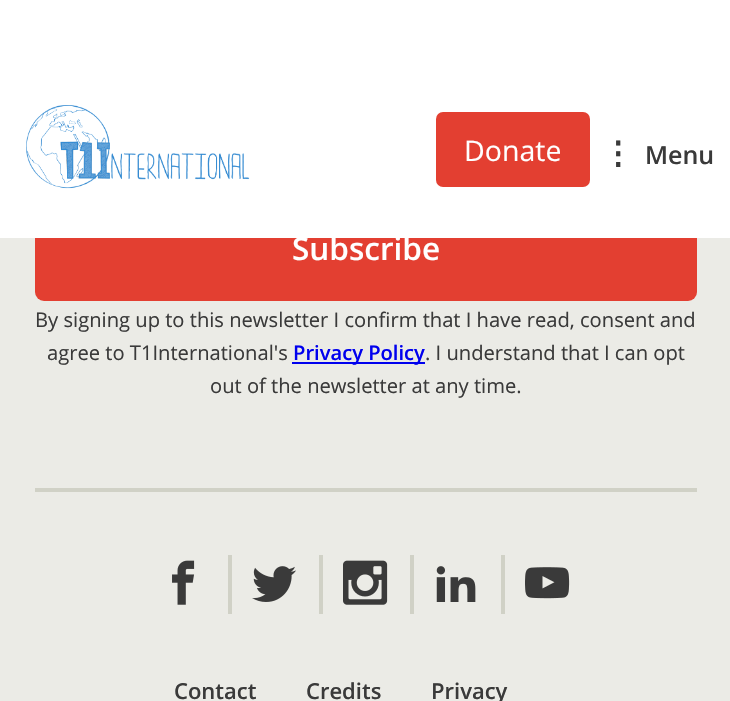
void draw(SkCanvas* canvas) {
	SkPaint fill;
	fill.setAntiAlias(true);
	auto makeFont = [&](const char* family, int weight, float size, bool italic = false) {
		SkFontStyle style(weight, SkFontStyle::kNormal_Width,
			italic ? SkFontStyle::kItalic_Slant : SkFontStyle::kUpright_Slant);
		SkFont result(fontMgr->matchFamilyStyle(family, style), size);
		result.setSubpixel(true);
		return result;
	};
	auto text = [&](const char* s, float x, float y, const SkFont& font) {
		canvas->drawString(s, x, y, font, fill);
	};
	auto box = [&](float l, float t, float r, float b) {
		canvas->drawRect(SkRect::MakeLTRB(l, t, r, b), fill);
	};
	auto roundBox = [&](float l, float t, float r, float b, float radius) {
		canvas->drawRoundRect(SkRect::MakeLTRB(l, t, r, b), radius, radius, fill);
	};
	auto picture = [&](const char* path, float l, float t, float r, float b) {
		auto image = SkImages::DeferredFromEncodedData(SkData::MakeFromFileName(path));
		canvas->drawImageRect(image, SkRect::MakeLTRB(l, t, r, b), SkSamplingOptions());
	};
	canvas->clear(0xFFEBEBE6);
	fill.setColor(0xFFE33F31);
	roundBox(35, 196, 697, 301, 9);
	fill.setColor(0xFFFFFFFF);
	box(0, 0, 730, 238);
	picture("image0.png", 26, 105, 250, 189);
	fill.setColor(0xFFE33F31);
	roundBox(436, 112, 590, 187, 7);
	fill.setColor(0xFF0000EE);
	box(292, 362, 425, 364);
	fill.setColor(0xFFD0D1C6);
	box(35, 488, 697, 492);
	picture("image1.png", 172, 560, 195, 605);
	box(228, 555, 232, 614);
	picture("image2.png", 252, 566, 296, 602);
	box(319, 555, 323, 614);
	picture("image3.png", 343, 560, 388, 605);
	box(410, 555, 414, 614);
	picture("image4.png", 436, 566, 476, 602);
	box(501, 555, 505, 614);
	picture("image5.png", 525, 567, 570, 599);
	auto font1 = makeFont("Open Sans", 400, 28.5f);
	fill.setColor(0xFFFFFFFF);
	text("Donate", 464, 161, font1);
	auto font2 = makeFont("DejaVu Sans", 700, 31.5f);
	fill.setColor(0xFF3A3A3A);
	text("⋮", 602, 164, font2);
	auto font3 = makeFont("Open Sans", 600, 25);
	text("Menu", 645, 164, font3);
	auto font4 = makeFont("Open Sans", 600, 31.5f);
	fill.setColor(0xFFFFFFFF);
	text("Subscribe", 292, 260, font4);
	auto font5 = makeFont("Open Sans", 400, 20.15f);
	fill.setColor(0xFF3A3A3A);
	text("By signing up to this newsletter I confirm that I have read, consent and", 35, 327, font5);
	text("agree to T1International's", 47, 360, font5);
	auto font6 = makeFont("Open Sans", 600, 20.15f);
	fill.setColor(0xFF0000EE);
	text("Privacy Policy", 293, 360, font6);
	fill.setColor(0xFF3A3A3A);
	text(". I understand that I can opt", 425, 360, font5);
	text("out of the newsletter at any time.", 210, 393, font5);
	auto font7 = makeFont("Open Sans", 600, 22);
	text("Contact", 174, 699, font7);
	text("Credits", 306, 699, font7);
	text("Privacy", 431, 699, font7);
}
